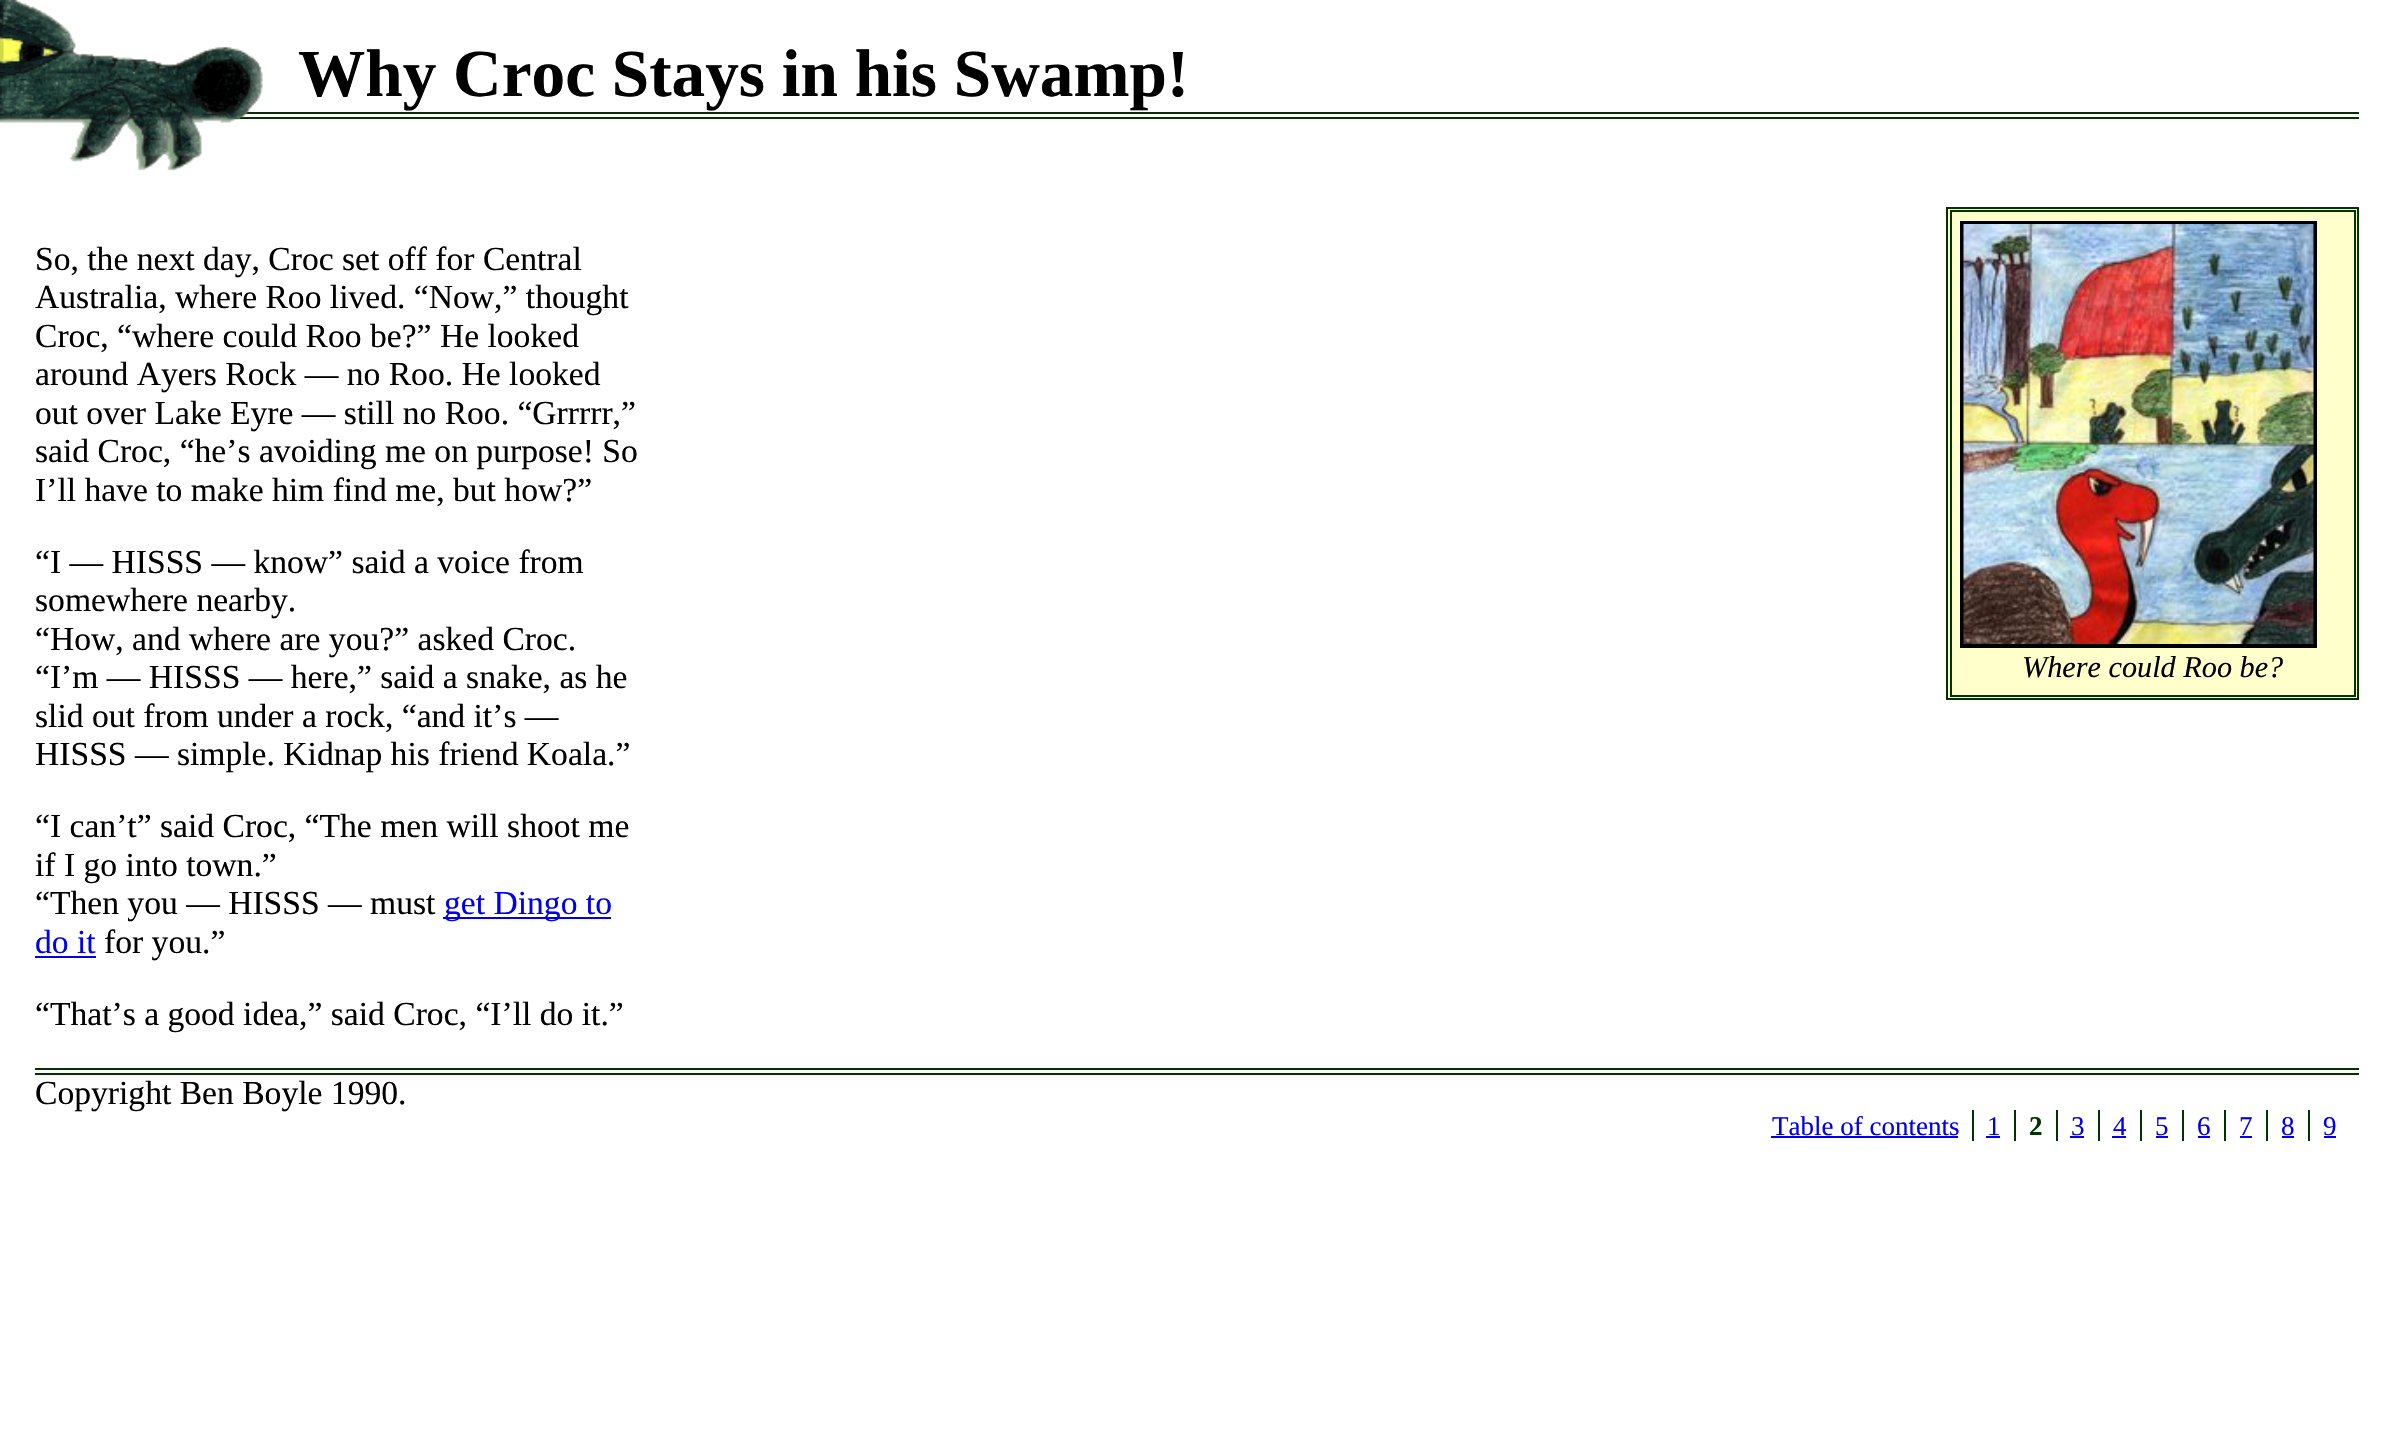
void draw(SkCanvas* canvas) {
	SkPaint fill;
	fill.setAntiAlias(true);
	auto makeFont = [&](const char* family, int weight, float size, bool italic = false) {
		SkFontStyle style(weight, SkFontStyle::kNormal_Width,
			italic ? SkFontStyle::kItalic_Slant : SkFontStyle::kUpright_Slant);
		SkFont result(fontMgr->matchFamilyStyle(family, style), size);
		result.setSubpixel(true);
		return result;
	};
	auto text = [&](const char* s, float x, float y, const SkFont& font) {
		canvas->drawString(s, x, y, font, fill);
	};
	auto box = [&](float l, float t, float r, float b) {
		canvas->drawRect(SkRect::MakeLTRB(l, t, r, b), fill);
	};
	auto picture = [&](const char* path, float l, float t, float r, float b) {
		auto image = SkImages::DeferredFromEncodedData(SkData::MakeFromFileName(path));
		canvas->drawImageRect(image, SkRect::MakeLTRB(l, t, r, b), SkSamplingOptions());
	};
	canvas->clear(0xFFFFFFFF);
	fill.setColor(0xFF003300);
	box(244, 112, 2359, 114);
	box(234, 117, 2359, 119);
	fill.setColor(0xFF0000EE);
	box(443, 917, 611, 919);
	box(35, 956, 96, 958);
	fill.setColor(0xFFFFFFCC);
	canvas->drawRect(SkRect::MakeLTRB(1947, 208, 2358, 699), fill);
	fill.setStyle(SkPaint::kStroke_Style);
	fill.setStrokeWidth(2);
	fill.setColor(0xFF003300);
	canvas->drawRect(SkRect::MakeLTRB(1947, 208, 2358, 699), fill);
	canvas->drawRect(SkRect::MakeLTRB(1951, 211, 2355, 696), fill);
	fill.setStrokeWidth(4);
	fill.setColor(0xFF000000);
	canvas->drawRect(SkRect::MakeLTRB(1962, 223, 2315, 646), fill);
	picture("image0.png", 1963, 224, 2314, 644);
	fill.setStyle(SkPaint::kFill_Style);
	fill.setColor(0xFF003300);
	box(35, 1068, 2359, 1070);
	box(35, 1073, 2359, 1075);
	picture("image1.png", 0, 0, 263, 171);
	fill.setColor(0xFF0000EE);
	box(1771, 1136, 1958, 1138);
	fill.setColor(0xFF003300);
	box(1972, 1110, 1974, 1141);
	fill.setColor(0xFF0000EE);
	box(1986, 1136, 2000, 1138);
	fill.setColor(0xFF003300);
	box(2014, 1110, 2016, 1141);
	box(2056, 1110, 2058, 1141);
	fill.setColor(0xFF0000EE);
	box(2070, 1136, 2084, 1138);
	fill.setColor(0xFF003300);
	box(2098, 1110, 2100, 1141);
	fill.setColor(0xFF0000EE);
	box(2112, 1136, 2126, 1138);
	fill.setColor(0xFF003300);
	box(2140, 1110, 2142, 1141);
	fill.setColor(0xFF0000EE);
	box(2156, 1136, 2168, 1138);
	fill.setColor(0xFF003300);
	box(2182, 1110, 2184, 1141);
	fill.setColor(0xFF0000EE);
	box(2198, 1136, 2210, 1138);
	fill.setColor(0xFF003300);
	box(2224, 1110, 2226, 1141);
	fill.setColor(0xFF0000EE);
	box(2240, 1136, 2252, 1138);
	fill.setColor(0xFF003300);
	box(2266, 1110, 2268, 1141);
	fill.setColor(0xFF0000EE);
	box(2282, 1136, 2294, 1138);
	fill.setColor(0xFF003300);
	box(2308, 1110, 2310, 1141);
	fill.setColor(0xFF0000EE);
	box(2324, 1136, 2336, 1138);
	auto font1 = makeFont("Liberation Serif", 700, 67.25f);
	fill.setColor(0xFF000000);
	text("Why Croc Stays in his Swamp!", 298, 96, font1);
	auto font2 = makeFont("Liberation Serif", 400, 33.6f);
	text("So, the next day, Croc set off for Central", 35, 270, font2);
	text("Australia, where Roo lived. “Now,” thought", 35, 308, font2);
	text("Croc, “where could Roo be?” He looked", 35, 347, font2);
	text("around Ayers Rock — no Roo. He looked", 35, 385, font2);
	text("out over Lake Eyre — still no Roo. “Grrrrr,”", 35, 424, font2);
	text("said Croc, “he’s avoiding me on purpose! So", 35, 462, font2);
	text("I’ll have to make him find me, but how?”", 35, 501, font2);
	text("“I — HISSS — know” said a voice from", 35, 573, font2);
	text("somewhere nearby.", 35, 611, font2);
	text("“How, and where are you?” asked Croc.", 35, 650, font2);
	text("“I’m — HISSS — here,” said a snake, as he", 35, 688, font2);
	text("slid out from under a rock, “and it’s —", 35, 727, font2);
	text("HISSS — simple. Kidnap his friend Koala.”", 35, 765, font2);
	text("“I can’t” said Croc, “The men will shoot me", 35, 837, font2);
	text("if I go into town.”", 35, 876, font2);
	text("“Then you — HISSS — must", 35, 914, font2);
	fill.setColor(0xFF0000EE);
	text("get Dingo to", 444, 914, font2);
	text("do it", 35, 953, font2);
	fill.setColor(0xFF000000);
	text("for you.”", 104, 953, font2);
	text("“That’s a good idea,” said Croc, “I’ll do it.”", 35, 1025, font2);
	auto font3 = makeFont("Liberation Serif", 400, 30.25f, true);
	text("Where could Roo be?", 2022, 677, font3);
	text("Copyright Ben Boyle 1990.", 35, 1104, font2);
	auto font4 = makeFont("Liberation Serif", 400, 27);
	fill.setColor(0xFF0000EE);
	text("Table of contents", 1772, 1135, font4);
	text("1", 1987, 1135, font4);
	auto font5 = makeFont("Liberation Serif", 700, 27);
	fill.setColor(0xFF003300);
	text("2", 2029, 1135, font5);
	fill.setColor(0xFF0000EE);
	text("3", 2071, 1135, font4);
	text("4", 2113, 1135, font4);
	text("5", 2155, 1135, font4);
	text("6", 2197, 1135, font4);
	text("7", 2239, 1135, font4);
	text("8", 2281, 1135, font4);
	text("9", 2323, 1135, font4);
}
